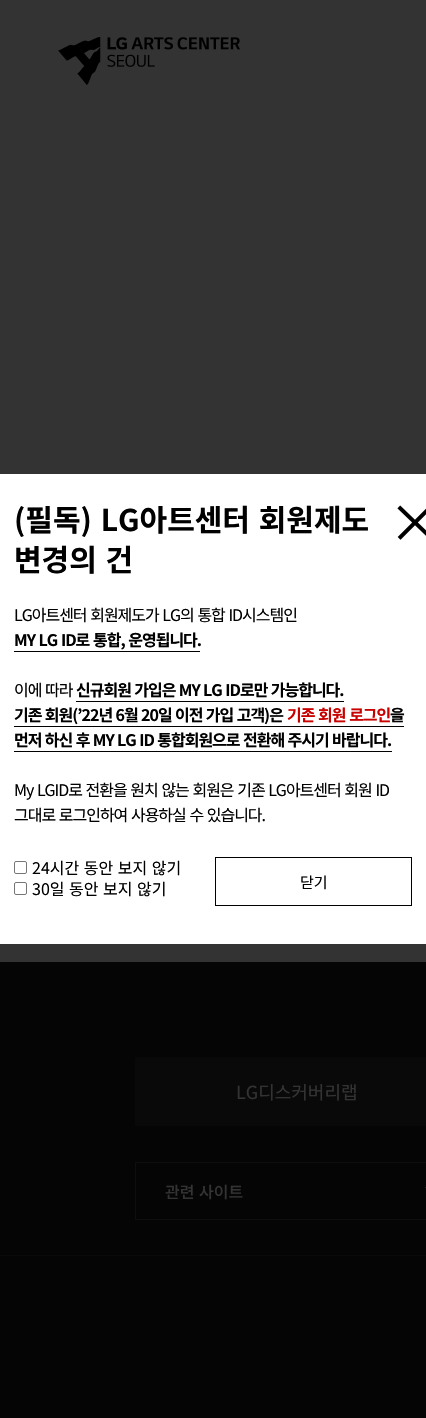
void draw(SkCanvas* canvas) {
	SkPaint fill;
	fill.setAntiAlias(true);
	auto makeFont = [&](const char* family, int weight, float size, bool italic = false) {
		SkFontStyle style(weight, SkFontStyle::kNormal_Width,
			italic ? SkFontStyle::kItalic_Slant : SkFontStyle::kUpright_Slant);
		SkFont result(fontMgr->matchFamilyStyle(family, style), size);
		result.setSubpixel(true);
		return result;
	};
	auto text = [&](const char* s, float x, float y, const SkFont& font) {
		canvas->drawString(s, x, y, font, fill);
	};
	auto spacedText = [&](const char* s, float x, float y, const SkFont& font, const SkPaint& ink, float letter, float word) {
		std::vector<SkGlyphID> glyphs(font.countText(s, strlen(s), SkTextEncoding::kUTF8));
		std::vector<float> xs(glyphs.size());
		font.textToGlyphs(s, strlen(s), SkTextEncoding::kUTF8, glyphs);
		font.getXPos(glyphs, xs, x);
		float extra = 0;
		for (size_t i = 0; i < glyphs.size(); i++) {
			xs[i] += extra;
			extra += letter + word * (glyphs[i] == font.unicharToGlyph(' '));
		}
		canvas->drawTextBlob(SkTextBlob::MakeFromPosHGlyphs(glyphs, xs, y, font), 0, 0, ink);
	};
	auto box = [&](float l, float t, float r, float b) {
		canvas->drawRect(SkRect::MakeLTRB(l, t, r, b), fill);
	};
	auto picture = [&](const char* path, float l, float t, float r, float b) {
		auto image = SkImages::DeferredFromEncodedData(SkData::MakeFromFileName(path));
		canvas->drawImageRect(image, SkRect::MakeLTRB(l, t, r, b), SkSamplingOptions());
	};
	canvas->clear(0xFF333333);
	picture("image0.png", 58, 37, 240, 85);
	fill.setColor(0xFFFFFFFF);
	box(0, 474, 426, 944);
	picture("image1.png", 397, 505, 426, 540);
	fill.setColor(0xFF000000);
	box(14, 651, 200, 652);
	box(76, 701, 344, 702);
	box(14, 726, 404, 727);
	box(14, 751, 392, 752);
	fill.setStyle(SkPaint::kStroke_Style);
	fill.setStrokeWidth(1);
	fill.setColor(0xFF767676);
	canvas->drawRoundRect(SkRect::MakeLTRB(14.5f, 861.5f, 26.5f, 873.5f), 1.5f, 1.5f, fill);
	canvas->drawRoundRect(SkRect::MakeLTRB(14.5f, 882.5f, 26.5f, 894.5f), 1.5f, 1.5f, fill);
	fill.setColor(0xFF000000);
	canvas->drawRect(SkRect::MakeLTRB(215.5f, 857.5f, 411.5f, 905.5f), fill);
	fill.setStyle(SkPaint::kFill_Style);
	fill.setColor(0xFF050505);
	box(0, 962, 426, 1418);
	fill.setColor(0xFF090909);
	box(135, 1057, 426, 1126);
	fill.setStyle(SkPaint::kStroke_Style);
	fill.setColor(0xFF0E0E0E);
	canvas->drawRect(SkRect::MakeLTRB(135.5f, 1162.5f, 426.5f, 1219.5f), fill);
	picture("image2.png", 425, 1187, 426, 1189);
	fill.setStyle(SkPaint::kFill_Style);
	fill.setColor(0xFF0A0A0A);
	box(0, 1255, 426, 1256);
	auto font1 = makeFont("Noto Sans KR", 700, 30);
	fill.setColor(0xFF000000);
	spacedText("(필독) LG아트센터 회원제도", 14, 531, font1, fill, 0, 2);
	spacedText("변경의 건", 14, 571, font1, fill, 0, 2);
	auto font2 = makeFont("Noto Sans KR", 400, 16);
	spacedText("LG아트센터 회원제도가 LG의 통합 ID시스템인", 14, 621, font2, fill, -1, 1);
	auto font3 = makeFont("Noto Sans KR", 700, 16);
	spacedText("MY LG ID로 통합, 운영됩니다.", 14, 646, font3, fill, -1, 1);
	spacedText("이에 따라", 14, 696, font2, fill, -1, 1);
	spacedText("신규회원 가입은 MY LG ID로만 가능합니다.", 76, 696, font3, fill, -1, 0.75f);
	spacedText("기존 회원(’22년 6월 20일 이전 가입 고객)은", 14, 721, font3, fill, -1, 0.75f);
	fill.setColor(0xFFC80000);
	spacedText("기존 회원 로그인", 287, 721, font3, fill, -1, 1);
	fill.setColor(0xFF000000);
	spacedText("을", 390, 721, font3, fill, -1, 0);
	spacedText("먼저 하신 후 MY LG ID 통합회원으로 전환해 주시기 바랍니다.", 14, 746, font3, fill, -1, 0.75f);
	spacedText("My LGID로 전환을 원치 않는 회원은 기존 LG아트센터 회원 ID", 14, 796, font2, fill, -1, 1);
	spacedText("그대로 로그인하여 사용하실 수 있습니다.", 14, 821, font2, fill, -1, 1);
	spacedText("24시간 동안 보지 않기", 32, 874, font2, fill, 0, 1);
	spacedText("30일 동안 보지 않기", 32, 895, font2, fill, 0, 1);
	auto font4 = makeFont("Noto Sans KR", 400, 15);
	text("닫기", 300, 888, font4);
	auto font5 = makeFont("Noto Sans KR", 400, 18);
	fill.setColor(0xFF333333);
	text("LG디스커버리랩", 236, 1099, font5);
	auto font6 = makeFont("Noto Sans KR", 500, 16);
	spacedText("관련 사이트", 165, 1198, font6, fill, 0, 1);
}
